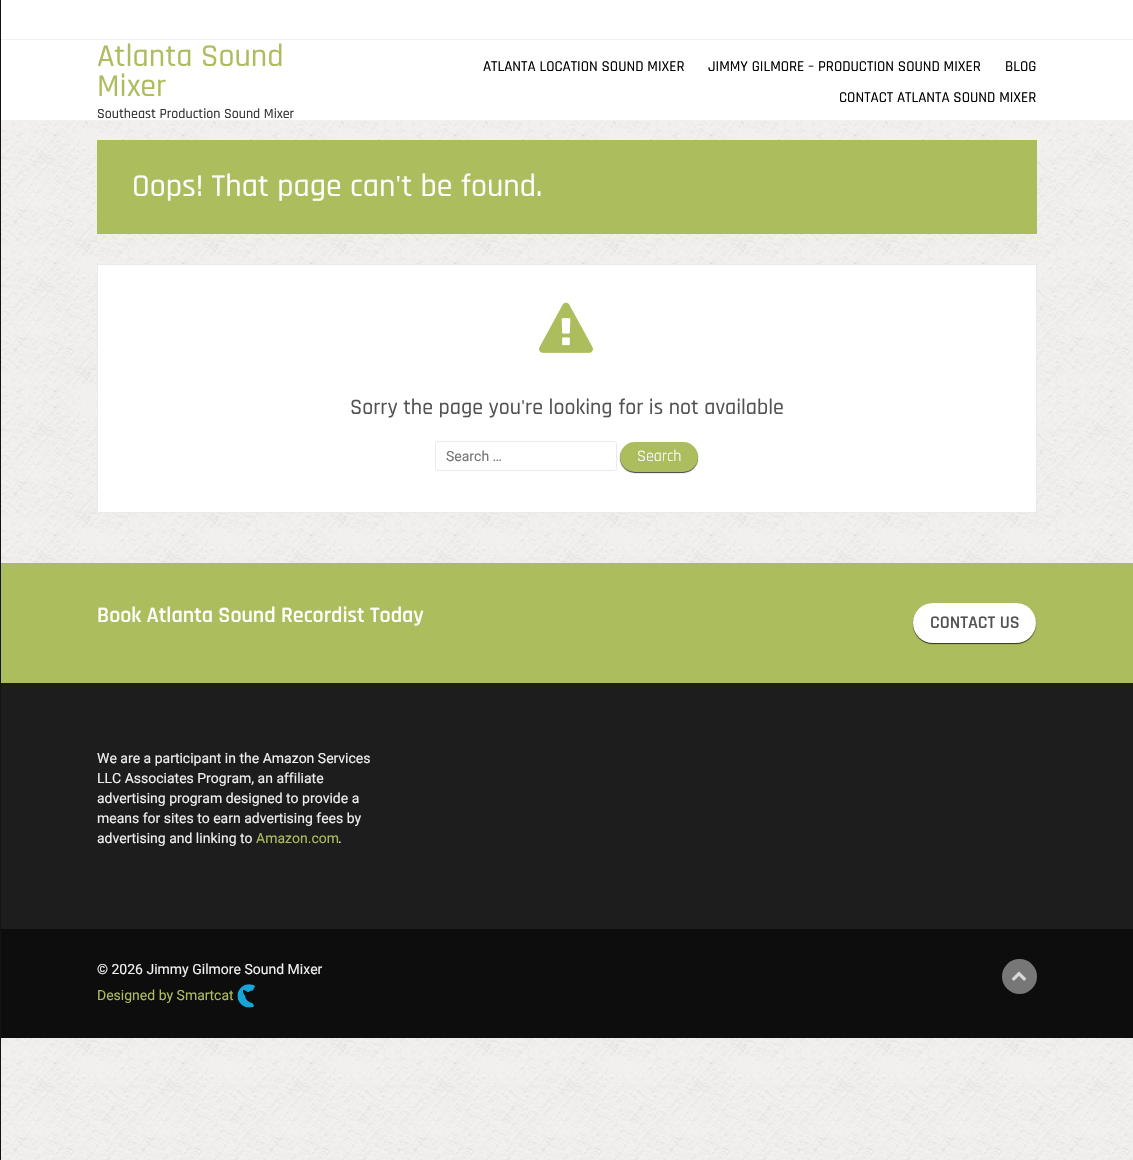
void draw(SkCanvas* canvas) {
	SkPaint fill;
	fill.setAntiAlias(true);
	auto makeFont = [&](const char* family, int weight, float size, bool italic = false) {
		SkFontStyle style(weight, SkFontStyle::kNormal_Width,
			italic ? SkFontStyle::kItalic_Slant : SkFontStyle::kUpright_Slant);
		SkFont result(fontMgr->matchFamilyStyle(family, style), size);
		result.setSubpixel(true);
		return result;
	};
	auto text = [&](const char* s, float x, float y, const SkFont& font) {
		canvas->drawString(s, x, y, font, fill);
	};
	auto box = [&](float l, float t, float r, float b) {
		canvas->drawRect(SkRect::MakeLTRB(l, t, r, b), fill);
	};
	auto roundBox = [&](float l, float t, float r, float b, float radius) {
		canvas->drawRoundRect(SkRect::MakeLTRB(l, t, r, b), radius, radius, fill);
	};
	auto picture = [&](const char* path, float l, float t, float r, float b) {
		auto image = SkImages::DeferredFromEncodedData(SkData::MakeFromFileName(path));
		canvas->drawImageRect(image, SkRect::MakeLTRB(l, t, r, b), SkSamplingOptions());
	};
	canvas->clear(0xFFFFFFFF);
	picture("image0.png", 1, 121, 1133, 1160);
	fill.setColor(0xFFF0F0F0);
	box(0, 120, 1133, 121);
	box(0, 39, 1133, 40);
	fill.setColor(0xFF131313);
	box(0, 0, 1, 1160);
	fill.setColor(0xFFACBD5D);
	box(97, 140, 1037, 234);
	fill.setColor(0xFFFFFFFF);
	canvas->drawRect(SkRect::MakeLTRB(97.5f, 264.5f, 1036.5f, 512.5f), fill);
	fill.setStyle(SkPaint::kStroke_Style);
	fill.setStrokeWidth(1);
	fill.setColor(0xFFEAEAEA);
	canvas->drawRect(SkRect::MakeLTRB(97.5f, 264.5f, 1036.5f, 512.5f), fill);
	picture("image1.png", 539, 302, 593, 353);
	canvas->drawRoundRect(SkRect::MakeLTRB(435.5f, 441.5f, 616.5f, 470.5f), 2.5f, 2.5f, fill);
	fill.setStyle(SkPaint::kFill_Style);
	fill.setColor(0xBF000000);
	fill.setMaskFilter(SkMaskFilter::MakeBlur(kNormal_SkBlurStyle, 0.5f));
	canvas->drawRoundRect(SkRect::MakeLTRB(620, 443, 698, 473), 15, 15, fill);
	fill.setMaskFilter(nullptr);
	fill.setColor(0xFFACBD5D);
	roundBox(620, 442, 698, 472, 15);
	fill.setColor(0xFF1D1D1D);
	box(1, 683, 1133, 929);
	fill.setColor(0xFFACBD5D);
	box(1, 563, 1133, 683);
	fill.setColor(0xBF000000);
	fill.setMaskFilter(SkMaskFilter::MakeBlur(kNormal_SkBlurStyle, 0.5f));
	canvas->drawRoundRect(SkRect::MakeLTRB(913, 604, 1036, 644), 20, 20, fill);
	fill.setMaskFilter(nullptr);
	fill.setColor(0xFFFFFFFF);
	roundBox(913, 603, 1036, 643, 20);
	fill.setColor(0xFF0D0D0D);
	box(1, 929, 1133, 1038);
	picture("image2.png", 237, 984, 256, 1008);
	fill.setColor(0xFF777777);
	canvas->drawCircle(1019.5f, 976.5f, 17.5f, fill);
	picture("image3.png", 1011, 971, 1027, 981);
	auto font1 = makeFont("Rajdhani", 500, 32);
	fill.setColor(0xFFACBD5D);
	text("Atlanta Sound", 97, 66, font1);
	text("Mixer", 97, 96, font1);
	auto font2 = makeFont("Rajdhani", 500, 14);
	fill.setColor(0xFF333333);
	text("Southeast Production Sound Mixer", 97, 118, font2);
	auto font3 = makeFont("Rajdhani", 500, 15);
	fill.setColor(0xFF000000);
	text("ATLANTA LOCATION SOUND MIXER", 483, 71, font3);
	text("JIMMY GILMORE – PRODUCTION SOUND MIXER", 708, 71, font3);
	text("BLOG", 1005, 71, font3);
	text("CONTACT ATLANTA SOUND MIXER", 839, 102, font3);
	fill.setColor(0xFFFFFFFF);
	text("Oops! That page can't be found.", 132, 196, font1);
	auto font4 = makeFont("Rajdhani", 500, 22);
	fill.setColor(0xFF525252);
	text("Sorry the page you're looking for is not available", 350, 414, font4);
	auto font5 = makeFont("Roboto", 400, 14);
	fill.setColor(0xFF757575);
	text("Search …", 446, 461, font5);
	auto font6 = makeFont("Rajdhani", 400, 16);
	fill.setColor(0xFFFFFFFF);
	text("Search", 637, 461, font6);
	auto font7 = makeFont("Rajdhani", 600, 22);
	text("Book Atlanta Sound Recordist Today", 97, 622, font7);
	auto font8 = makeFont("Rajdhani", 600, 18);
	fill.setColor(0xFF525252);
	text("CONTACT US", 930, 628, font8);
	fill.setColor(0xFFF0F0F0);
	text("We are a participant in the Amazon Services", 97, 763, font5);
	text("LLC Associates Program, an affiliate", 97, 783, font5);
	text("advertising program designed to provide a", 97, 803, font5);
	text("means for sites to earn advertising fees by", 97, 823, font5);
	text("advertising and linking to", 97, 843, font5);
	fill.setColor(0xFFACBD5D);
	text("Amazon.com", 256, 843, font5);
	fill.setColor(0xFFF0F0F0);
	text(".", 338, 843, font5);
	text("© 2026 Jimmy Gilmore Sound Mixer", 97, 974, font5);
	fill.setColor(0xFFACBD5D);
	text("Designed by Smartcat", 97, 1000, font5);
}
